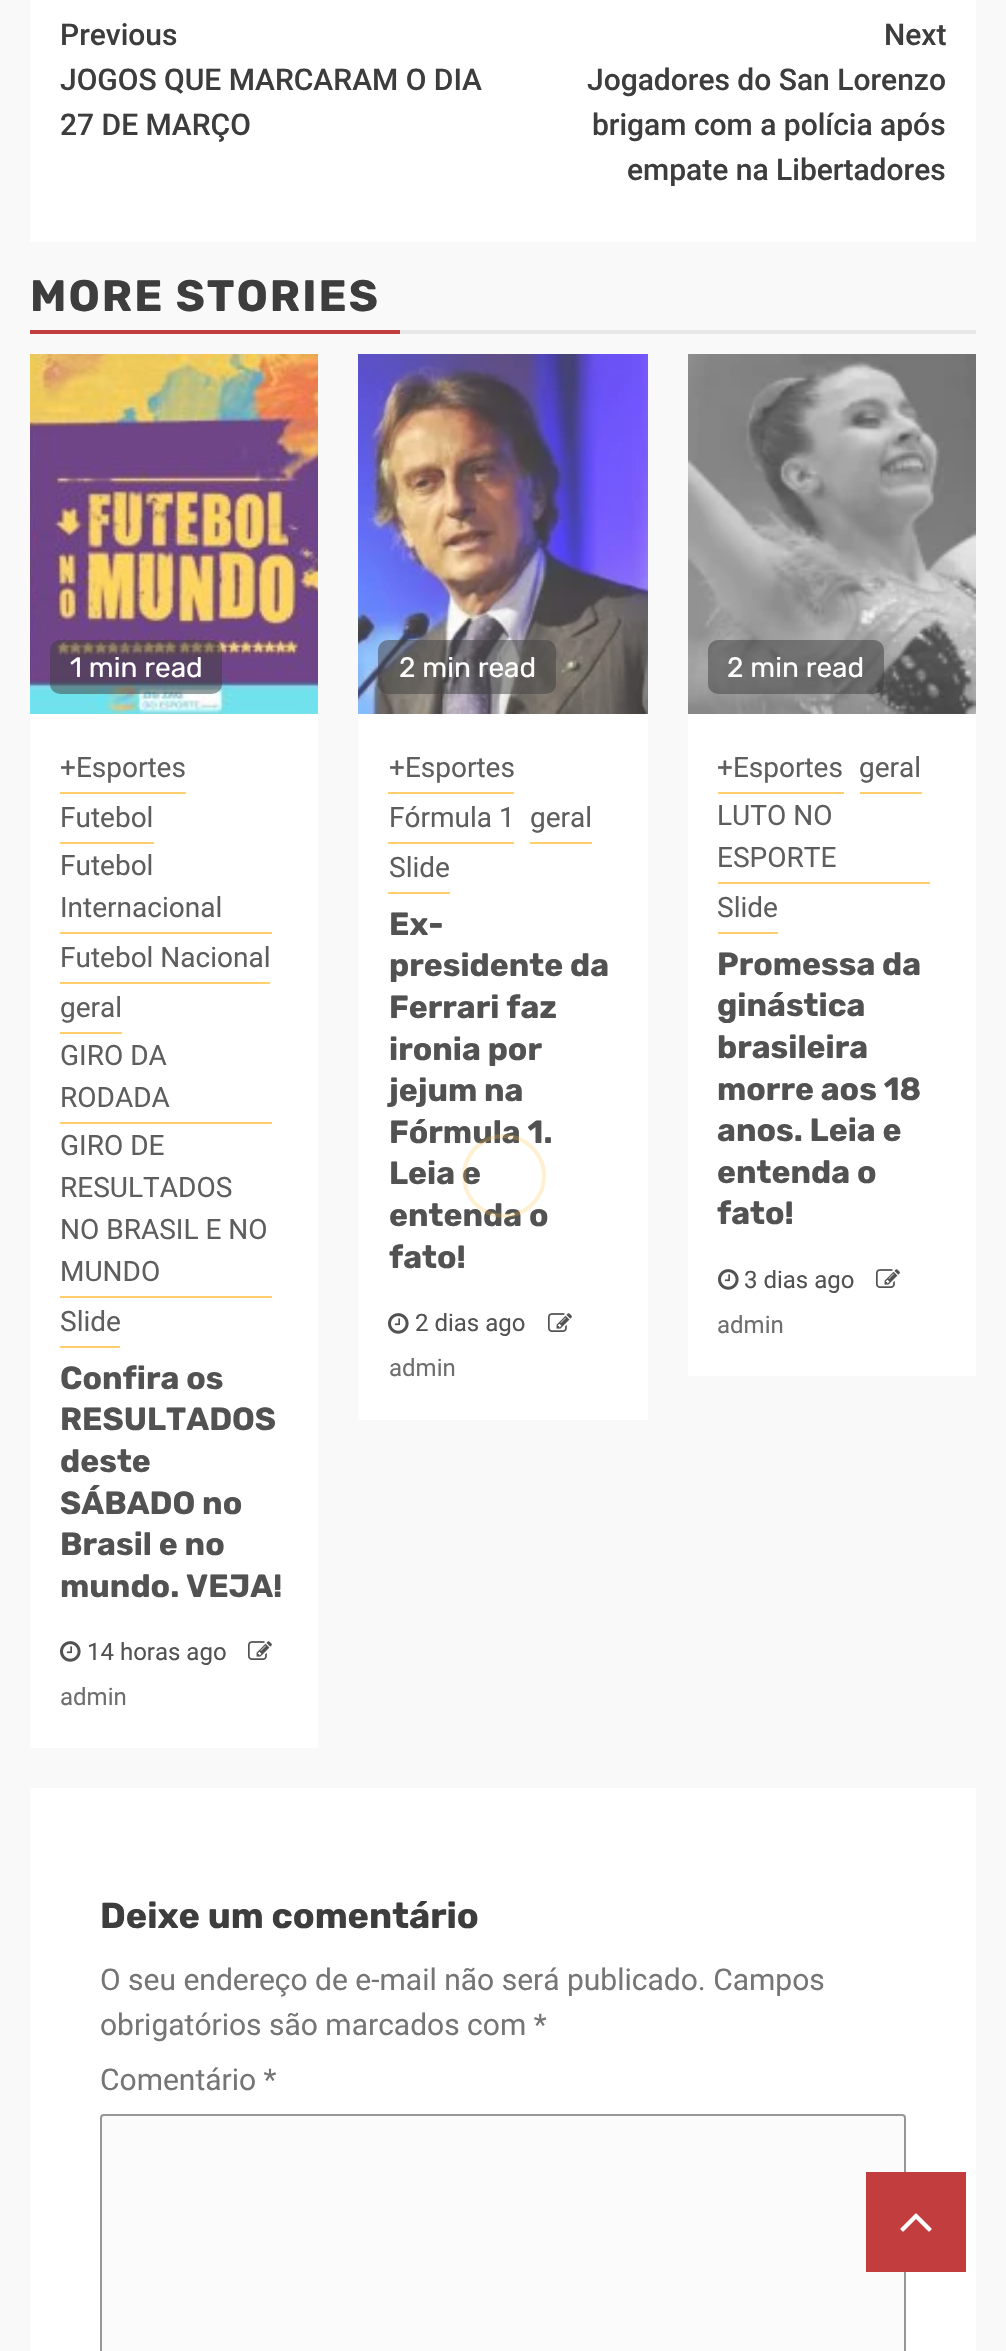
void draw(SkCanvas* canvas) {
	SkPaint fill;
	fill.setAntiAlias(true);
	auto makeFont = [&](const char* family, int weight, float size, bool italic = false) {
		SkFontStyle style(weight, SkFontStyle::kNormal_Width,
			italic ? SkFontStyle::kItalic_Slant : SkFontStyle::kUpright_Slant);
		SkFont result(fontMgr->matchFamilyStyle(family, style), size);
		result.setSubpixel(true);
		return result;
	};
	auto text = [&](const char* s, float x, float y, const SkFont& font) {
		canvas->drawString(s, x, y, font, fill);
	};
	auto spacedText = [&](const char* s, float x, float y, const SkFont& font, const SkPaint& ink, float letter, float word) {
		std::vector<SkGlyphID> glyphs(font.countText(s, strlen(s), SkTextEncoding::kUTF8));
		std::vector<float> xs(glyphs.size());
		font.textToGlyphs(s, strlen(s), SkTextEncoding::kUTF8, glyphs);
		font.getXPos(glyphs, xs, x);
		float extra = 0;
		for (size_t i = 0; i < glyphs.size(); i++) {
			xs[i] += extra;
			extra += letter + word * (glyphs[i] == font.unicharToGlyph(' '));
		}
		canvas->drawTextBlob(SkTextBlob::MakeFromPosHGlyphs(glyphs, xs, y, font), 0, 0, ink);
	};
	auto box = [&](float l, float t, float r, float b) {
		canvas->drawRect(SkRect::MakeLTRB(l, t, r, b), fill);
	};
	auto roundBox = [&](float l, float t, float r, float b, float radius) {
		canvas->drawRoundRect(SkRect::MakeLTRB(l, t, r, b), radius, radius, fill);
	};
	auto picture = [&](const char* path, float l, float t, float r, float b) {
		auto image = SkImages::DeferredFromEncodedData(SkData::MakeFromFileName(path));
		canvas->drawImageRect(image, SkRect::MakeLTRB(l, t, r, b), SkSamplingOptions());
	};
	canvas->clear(0xFFF9F9F9);
	fill.setColor(0xFFFFFFFF);
	box(30, 0, 976, 242);
	fill.setColor(0xFFC23D3D);
	box(30, 330, 400, 334);
	fill.setColor(0xFFE8E8E8);
	box(400, 330, 976, 334);
	fill.setColor(0xFFFFFFFF);
	box(30, 714, 318, 1748);
	picture("image0.png", 30, 354, 318, 714);
	fill.setColor(0x803D3D3D);
	roundBox(50, 640, 222, 694, 10);
	fill.setColor(0xFFFFCE6D);
	box(60, 792, 186, 794);
	box(60, 842, 154, 844);
	box(60, 932, 272, 934);
	box(60, 982, 270, 984);
	box(60, 1032, 122, 1034);
	box(60, 1122, 272, 1124);
	box(60, 1296, 272, 1298);
	box(60, 1346, 120, 1348);
	picture("image1.png", 60, 1641, 81, 1662);
	picture("image2.png", 248, 1641, 272, 1660);
	fill.setColor(0xFFFFFFFF);
	box(358, 714, 648, 1420);
	picture("image3.png", 358, 354, 648, 714);
	fill.setColor(0x803D3D3D);
	roundBox(378, 640, 556, 694, 10);
	fill.setColor(0xFFFFCE6D);
	box(388, 792, 514, 794);
	box(388, 842, 514, 844);
	box(530, 842, 592, 844);
	box(388, 892, 450, 894);
	picture("image1.png", 388, 1313, 409, 1334);
	picture("image2.png", 548, 1313, 572, 1332);
	fill.setColor(0xFFFFFFFF);
	box(688, 714, 976, 1376);
	picture("image4.png", 688, 354, 976, 714);
	fill.setColor(0x803D3D3D);
	roundBox(708, 640, 884, 694, 10);
	fill.setColor(0xFFFFCE6D);
	box(718, 792, 844, 794);
	box(860, 792, 922, 794);
	box(718, 882, 930, 884);
	box(718, 932, 778, 934);
	picture("image1.png", 718, 1269, 739, 1290);
	picture("image2.png", 876, 1269, 900, 1288);
	fill.setColor(0xFFFFFFFF);
	box(30, 1788, 976, 2351);
	fill.setColor(0xFFFBFBFB);
	canvas->drawRoundRect(SkRect::MakeLTRB(101, 2115, 905, 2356), 3, 3, fill);
	fill.setStyle(SkPaint::kStroke_Style);
	fill.setStrokeWidth(2);
	fill.setColor(0xFF979797);
	canvas->drawRoundRect(SkRect::MakeLTRB(101, 2115, 905, 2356), 3, 3, fill);
	fill.setStyle(SkPaint::kFill_Style);
	fill.setColor(0xFFC23D3D);
	box(866, 2172, 966, 2272);
	picture("image5.png", 900, 2213, 932, 2232);
	auto font1 = makeFont("Roboto", 500, 30);
	fill.setColor(0xFF3D3D3D);
	text("Previous", 60, 45, font1);
	text("JOGOS QUE MARCARAM O DIA", 60, 90, font1);
	text("27 DE MARÇO", 60, 135, font1);
	text("Next", 884, 45, font1);
	text("Jogadores do San Lorenzo", 587, 90, font1);
	text("brigam com a polícia após", 592, 135, font1);
	text("empate na Libertadores", 627, 180, font1);
	auto font2 = makeFont("Rubik", 700, 44);
	spacedText("MORE STORIES", 30, 311, font2, fill, 2, 0);
	auto font3 = makeFont("Rubik", 400, 28);
	fill.setColor(0xFFFFFFFF);
	text("1 min read", 70, 677, font3);
	auto font4 = makeFont("Roboto", 400, 28);
	fill.setColor(0xFF5E5E5E);
	text("+Esportes", 60, 777, font4);
	text("Futebol", 60, 827, font4);
	text("Futebol", 60, 875, font4);
	text("Internacional", 60, 917, font4);
	text("Futebol Nacional", 60, 967, font4);
	text("geral", 60, 1017, font4);
	text("GIRO DA", 60, 1065, font4);
	text("RODADA", 60, 1107, font4);
	text("GIRO DE", 60, 1155, font4);
	text("RESULTADOS", 60, 1197, font4);
	text("NO BRASIL E NO", 60, 1239, font4);
	text("MUNDO", 60, 1281, font4);
	text("Slide", 60, 1331, font4);
	auto font5 = makeFont("Rubik", 700, 32);
	fill.setColor(0xFF525252);
	text("Confira os", 60, 1389, font5);
	text("RESULTADOS", 60, 1430, font5);
	text("deste", 60, 1472, font5);
	text("SÁBADO no", 60, 1514, font5);
	text("Brasil e no", 60, 1555, font5);
	text("mundo. VEJA!", 60, 1597, font5);
	auto font6 = makeFont("Roboto", 400, 24);
	text("14 horas ago", 87, 1660, font6);
	fill.setColor(0xFF6E6E6E);
	text("admin", 60, 1705, font6);
	fill.setColor(0xFFFFFFFF);
	text("2 min read", 399, 677, font3);
	fill.setColor(0xFF5E5E5E);
	text("+Esportes", 389, 777, font4);
	text("Fórmula 1", 389, 827, font4);
	text("geral", 530, 827, font4);
	text("Slide", 389, 877, font4);
	fill.setColor(0xFF525252);
	text("Ex-", 389, 935, font5);
	text("presidente da", 389, 976, font5);
	text("Ferrari faz", 389, 1018, font5);
	text("ironia por", 389, 1060, font5);
	text("jejum na", 389, 1101, font5);
	text("Fórmula 1.", 389, 1143, font5);
	text("Leia e", 389, 1184, font5);
	text("entenda o", 389, 1226, font5);
	text("fato!", 389, 1268, font5);
	text("2 dias ago", 415, 1331, font6);
	fill.setColor(0xFF6E6E6E);
	text("admin", 389, 1376, font6);
	fill.setColor(0xFFFFFFFF);
	text("2 min read", 727, 677, font3);
	fill.setColor(0xFF5E5E5E);
	text("+Esportes", 717, 777, font4);
	text("geral", 859, 777, font4);
	text("LUTO NO", 717, 825, font4);
	text("ESPORTE", 717, 867, font4);
	text("Slide", 717, 917, font4);
	fill.setColor(0xFF525252);
	text("Promessa da", 717, 975, font5);
	text("ginástica", 717, 1016, font5);
	text("brasileira", 717, 1058, font5);
	text("morre aos 18", 717, 1100, font5);
	text("anos. Leia e", 717, 1141, font5);
	text("entenda o", 717, 1183, font5);
	text("fato!", 717, 1224, font5);
	text("3 dias ago", 744, 1288, font6);
	fill.setColor(0xFF6E6E6E);
	text("admin", 717, 1333, font6);
	auto font7 = makeFont("Rubik", 700, 36);
	fill.setColor(0xFF3D3D3D);
	text("Deixe um comentário", 100, 1928, font7);
	auto font8 = makeFont("Roboto", 400, 30);
	fill.setColor(0xFF757575);
	text("O seu endereço de e-mail não será publicado. Campos", 100, 1990, font8);
	text("obrigatórios são marcados com *", 100, 2035, font8);
	text("Comentário *", 100, 2090, font8);
	fill.setStyle(SkPaint::kStroke_Style);
	fill.setStrokeWidth(4);
	fill.setColor(0x3DFFBF3F);
	canvas->drawCircle(504, 1176, 40, fill);
}
